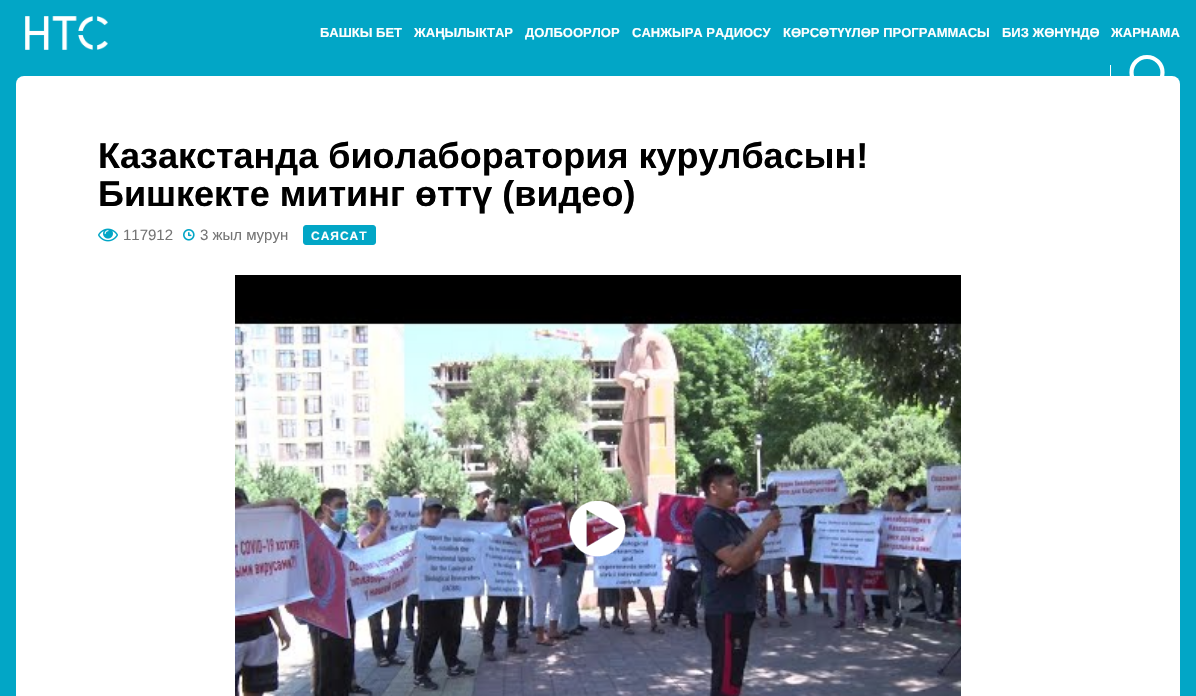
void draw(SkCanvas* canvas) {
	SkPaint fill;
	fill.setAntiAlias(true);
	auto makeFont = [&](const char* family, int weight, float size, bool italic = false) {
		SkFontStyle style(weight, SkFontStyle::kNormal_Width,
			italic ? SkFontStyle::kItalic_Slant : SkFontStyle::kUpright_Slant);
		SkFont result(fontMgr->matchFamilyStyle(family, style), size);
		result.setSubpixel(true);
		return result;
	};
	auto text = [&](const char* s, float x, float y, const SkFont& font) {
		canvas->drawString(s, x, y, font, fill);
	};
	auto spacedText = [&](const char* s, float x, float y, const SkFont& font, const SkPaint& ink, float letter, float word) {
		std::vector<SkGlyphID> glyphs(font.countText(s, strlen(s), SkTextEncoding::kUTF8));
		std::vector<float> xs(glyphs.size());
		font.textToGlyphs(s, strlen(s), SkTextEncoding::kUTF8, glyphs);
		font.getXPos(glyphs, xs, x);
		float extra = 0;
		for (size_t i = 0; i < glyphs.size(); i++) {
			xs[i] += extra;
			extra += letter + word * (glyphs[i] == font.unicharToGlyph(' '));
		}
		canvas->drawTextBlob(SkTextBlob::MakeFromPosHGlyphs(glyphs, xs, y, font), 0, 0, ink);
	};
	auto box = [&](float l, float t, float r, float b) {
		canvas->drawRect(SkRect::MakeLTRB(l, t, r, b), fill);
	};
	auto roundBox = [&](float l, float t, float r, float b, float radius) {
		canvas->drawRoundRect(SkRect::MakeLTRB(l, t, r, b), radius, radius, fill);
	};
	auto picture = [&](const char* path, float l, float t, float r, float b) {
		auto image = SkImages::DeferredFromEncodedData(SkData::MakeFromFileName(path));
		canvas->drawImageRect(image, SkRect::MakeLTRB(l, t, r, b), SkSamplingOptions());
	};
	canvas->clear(0xFF02A6C6);
	picture("image0.png", 25, 16, 108, 50);
	fill.setColor(0xFFFFFFFF);
	box(1110, 65, 1111, 76);
	roundBox(16, 76, 1180, 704, 8);
	fill.setStyle(SkPaint::kStroke_Style);
	fill.setStrokeWidth(4.2f);
	canvas->drawCircle(1147, 72.5f, 15.5f, fill);
	picture("image1.png", 98, 228, 118, 242);
	picture("image2.png", 183, 229, 195, 241);
	fill.setStyle(SkPaint::kFill_Style);
	fill.setColor(0xFF02A6C6);
	canvas->drawRoundRect(SkRect::MakeLTRB(303.5f, 225.5f, 375.5f, 244.5f), 2.5f, 2.5f, fill);
	fill.setStyle(SkPaint::kStroke_Style);
	fill.setStrokeWidth(1);
	canvas->drawRoundRect(SkRect::MakeLTRB(303.5f, 225.5f, 375.5f, 244.5f), 2.5f, 2.5f, fill);
	fill.setStyle(SkPaint::kFill_Style);
	fill.setColor(0xFF000000);
	box(235, 275, 961, 309);
	picture("image3.png", 235, 309, 961, 696);
	picture("image4.png", 570, 501, 626, 557);
	auto font1 = makeFont("Liberation Sans", 700, 13);
	fill.setColor(0xFFFFFFFF);
	text("БАШКЫ БЕТ", 320, 37, font1);
	text("ЖАҢЫЛЫКТАР", 414, 37, font1);
	text("ДОЛБООРЛОР", 525, 37, font1);
	text("САНЖЫРА РАДИОСУ", 632, 37, font1);
	text("КӨРСӨТҮҮЛӨР ПРОГРАММАСЫ", 783, 37, font1);
	text("БИЗ ЖӨНҮНДӨ", 1002, 37, font1);
	text("ЖАРНАМА", 1111, 37, font1);
	auto font2 = makeFont("Liberation Sans", 700, 36);
	fill.setColor(0xFF000000);
	text("Казакстанда биолаборатория курулбасын!", 98, 168, font2);
	text("Бишкекте митинг өттү (видео)", 98, 206, font2);
	auto font3 = makeFont("Liberation Sans", 400, 15);
	fill.setColor(0xFF757575);
	text("117912", 123, 240, font3);
	text("3 жыл мурун", 200, 240, font3);
	auto font4 = makeFont("Liberation Sans", 700, 12);
	fill.setColor(0xFFFFFFFF);
	spacedText("САЯСАТ", 311, 240, font4, fill, 1, 0);
}
